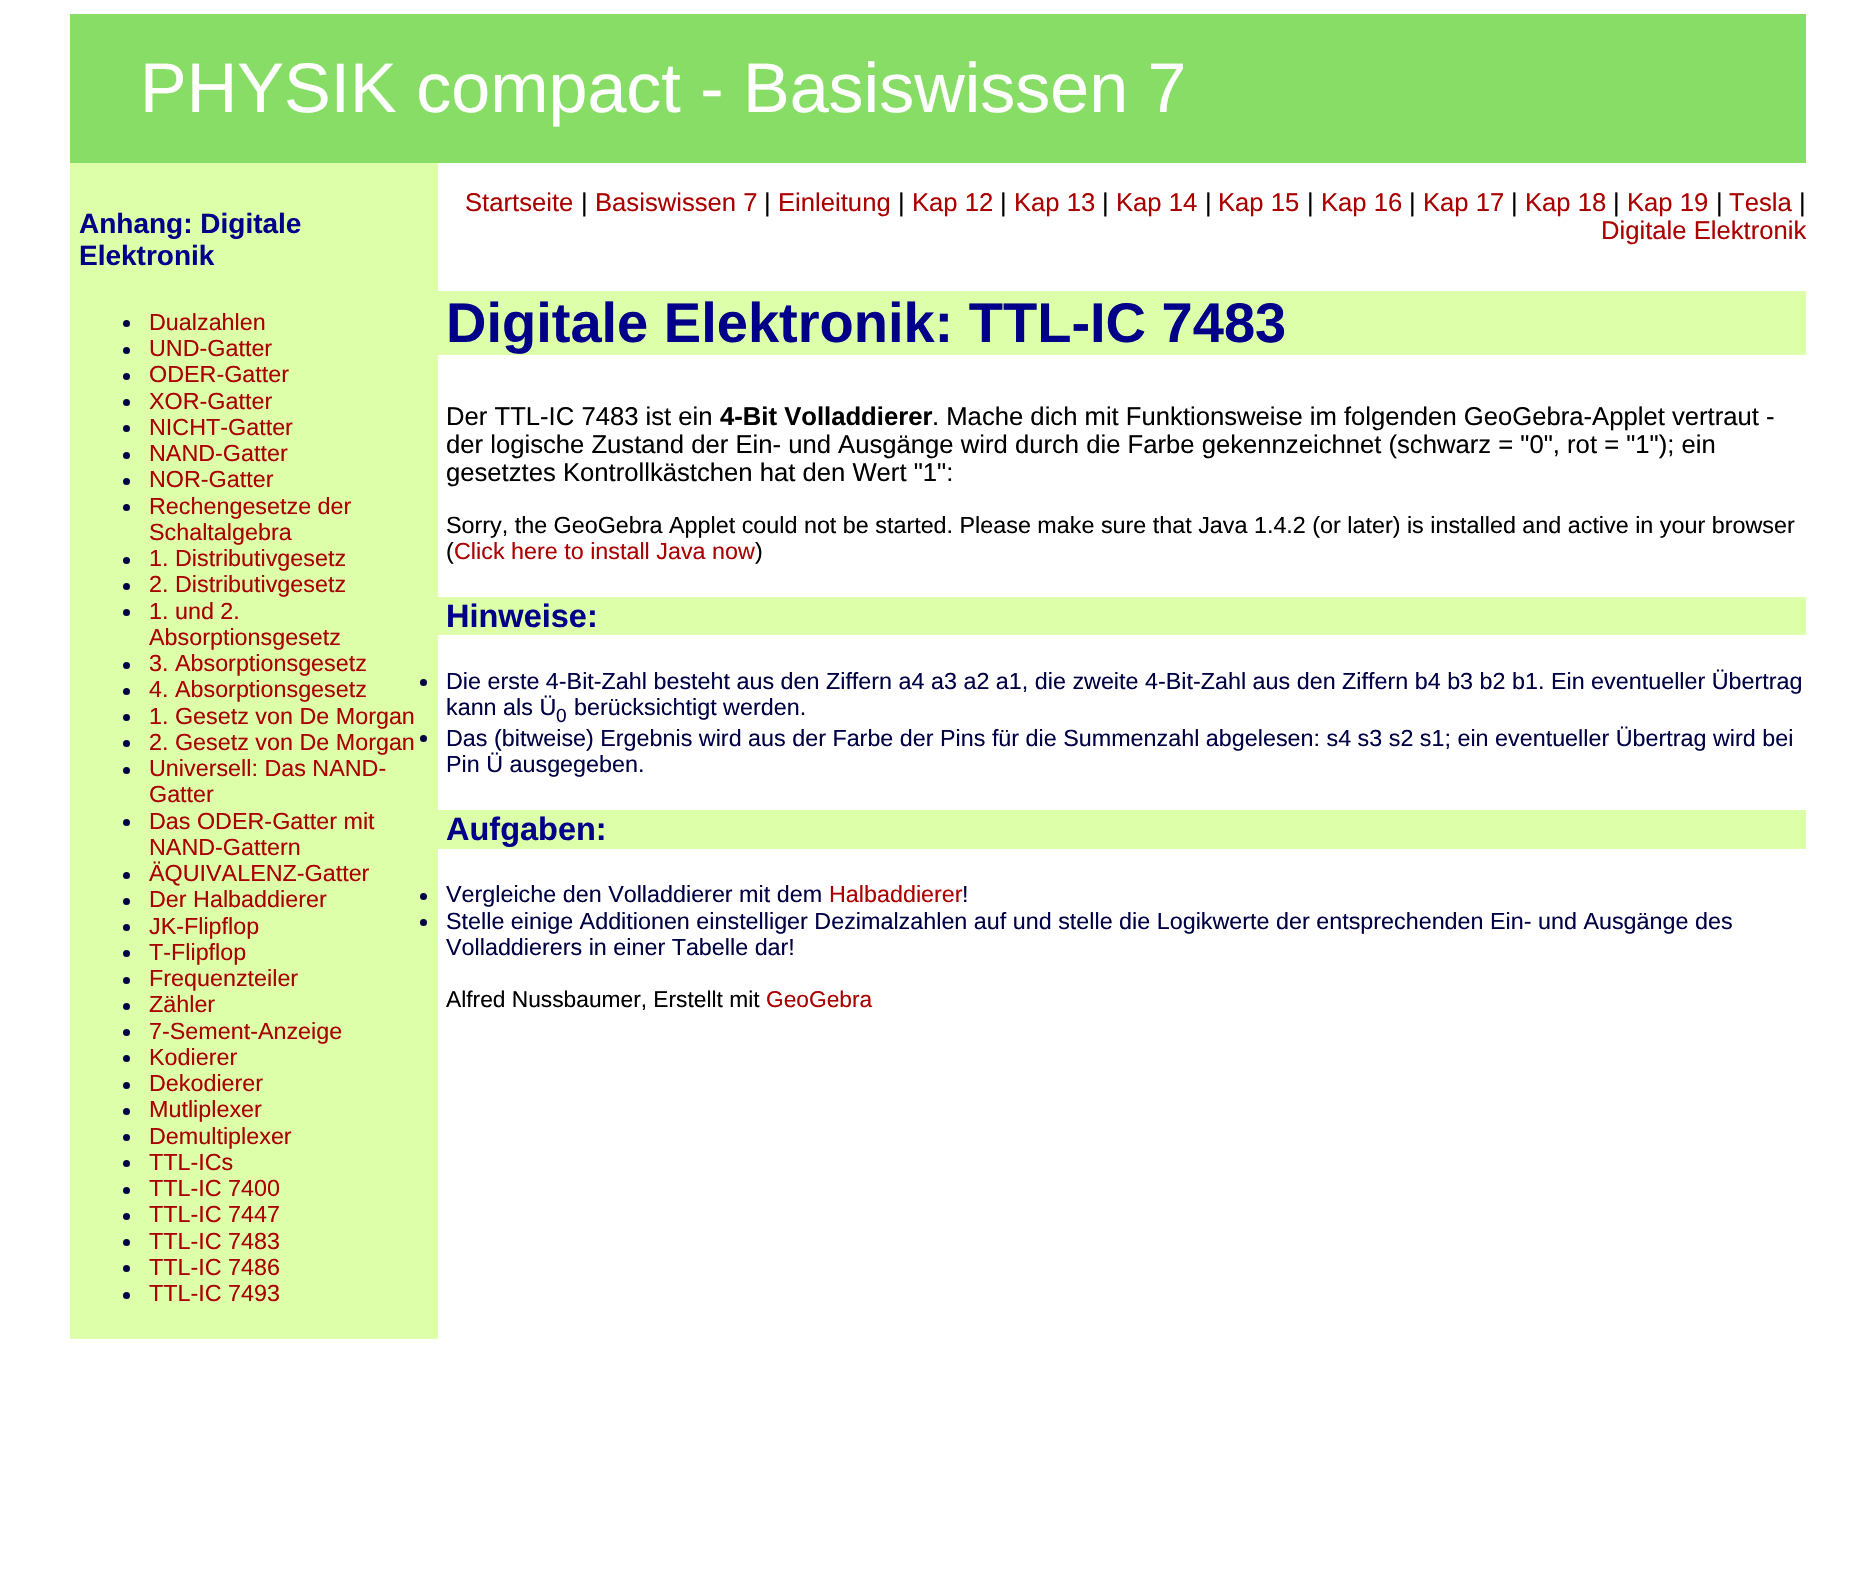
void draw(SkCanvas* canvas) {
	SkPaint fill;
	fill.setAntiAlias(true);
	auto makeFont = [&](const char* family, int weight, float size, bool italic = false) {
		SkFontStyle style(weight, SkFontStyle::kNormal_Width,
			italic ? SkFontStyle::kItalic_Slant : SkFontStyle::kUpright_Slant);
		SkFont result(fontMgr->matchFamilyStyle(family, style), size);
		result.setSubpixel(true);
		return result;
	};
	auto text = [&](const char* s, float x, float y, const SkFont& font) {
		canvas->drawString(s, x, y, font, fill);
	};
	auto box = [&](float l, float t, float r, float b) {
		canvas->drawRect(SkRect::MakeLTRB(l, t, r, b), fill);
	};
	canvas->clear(0xFFFFFFFF);
	fill.setColor(0xFF88DD66);
	box(70, 14, 1806, 163);
	fill.setColor(0xFFDDFFAA);
	box(70, 163, 438, 1339);
	fill.setColor(0xFF000044);
	canvas->drawCircle(126.5f, 323.5f, 3.5f, fill);
	canvas->drawCircle(126.5f, 350.5f, 3.5f, fill);
	canvas->drawCircle(126.5f, 376.5f, 3.5f, fill);
	canvas->drawCircle(126.5f, 402.5f, 3.5f, fill);
	canvas->drawCircle(126.5f, 428.5f, 3.5f, fill);
	canvas->drawCircle(126.5f, 455.5f, 3.5f, fill);
	canvas->drawCircle(126.5f, 481.5f, 3.5f, fill);
	canvas->drawCircle(126.5f, 507.5f, 3.5f, fill);
	canvas->drawCircle(126.5f, 560.5f, 3.5f, fill);
	canvas->drawCircle(126.5f, 586.5f, 3.5f, fill);
	canvas->drawCircle(126.5f, 612.5f, 3.5f, fill);
	canvas->drawCircle(126.5f, 665.5f, 3.5f, fill);
	canvas->drawCircle(126.5f, 691.5f, 3.5f, fill);
	canvas->drawCircle(126.5f, 717.5f, 3.5f, fill);
	canvas->drawCircle(126.5f, 743.5f, 3.5f, fill);
	canvas->drawCircle(126.5f, 770.5f, 3.5f, fill);
	canvas->drawCircle(126.5f, 822.5f, 3.5f, fill);
	canvas->drawCircle(126.5f, 875.5f, 3.5f, fill);
	canvas->drawCircle(126.5f, 901.5f, 3.5f, fill);
	canvas->drawCircle(126.5f, 927.5f, 3.5f, fill);
	canvas->drawCircle(126.5f, 953.5f, 3.5f, fill);
	canvas->drawCircle(126.5f, 980.5f, 3.5f, fill);
	canvas->drawCircle(126.5f, 1006.5f, 3.5f, fill);
	canvas->drawCircle(126.5f, 1032.5f, 3.5f, fill);
	canvas->drawCircle(126.5f, 1058.5f, 3.5f, fill);
	canvas->drawCircle(126.5f, 1085.5f, 3.5f, fill);
	canvas->drawCircle(126.5f, 1111.5f, 3.5f, fill);
	canvas->drawCircle(126.5f, 1137.5f, 3.5f, fill);
	canvas->drawCircle(126.5f, 1163.5f, 3.5f, fill);
	canvas->drawCircle(126.5f, 1190.5f, 3.5f, fill);
	canvas->drawCircle(126.5f, 1216.5f, 3.5f, fill);
	canvas->drawCircle(126.5f, 1242.5f, 3.5f, fill);
	canvas->drawCircle(126.5f, 1268.5f, 3.5f, fill);
	canvas->drawCircle(126.5f, 1295.5f, 3.5f, fill);
	fill.setColor(0xFFDDFFAA);
	box(438, 291, 1806, 355);
	box(438, 597, 1806, 635);
	fill.setColor(0xFF000044);
	canvas->drawCircle(423.5f, 682.5f, 3.5f, fill);
	canvas->drawCircle(423.5f, 738.5f, 3.5f, fill);
	fill.setColor(0xFFDDFFAA);
	box(438, 810, 1806, 849);
	fill.setColor(0xFF000044);
	canvas->drawCircle(423.5f, 896.5f, 3.5f, fill);
	canvas->drawCircle(423.5f, 922.5f, 3.5f, fill);
	auto font1 = makeFont("Liberation Sans", 400, 70);
	fill.setColor(0xFFFFFFFF);
	text("PHYSIK compact - Basiswissen 7", 140, 112, font1);
	auto font2 = makeFont("Liberation Sans", 700, 28);
	fill.setColor(0xFF000088);
	text("Anhang: Digitale", 79, 233, font2);
	text("Elektronik", 79, 265, font2);
	auto font3 = makeFont("Liberation Sans", 400, 23.33f);
	fill.setColor(0xFFAA0000);
	text("Dualzahlen", 149, 330, font3);
	text("UND-Gatter", 149, 356, font3);
	text("ODER-Gatter", 149, 382, font3);
	text("XOR-Gatter", 149, 409, font3);
	text("NICHT-Gatter", 149, 435, font3);
	text("NAND-Gatter", 149, 461, font3);
	text("NOR-Gatter", 149, 487, font3);
	text("Rechengesetze der", 149, 514, font3);
	text("Schaltalgebra", 149, 540, font3);
	text("1. Distributivgesetz", 149, 566, font3);
	text("2. Distributivgesetz", 149, 592, font3);
	text("1. und 2.", 149, 619, font3);
	text("Absorptionsgesetz", 149, 645, font3);
	text("3. Absorptionsgesetz", 149, 671, font3);
	text("4. Absorptionsgesetz", 149, 697, font3);
	text("1. Gesetz von De Morgan", 149, 724, font3);
	text("2. Gesetz von De Morgan", 149, 750, font3);
	text("Universell: Das NAND-", 149, 776, font3);
	text("Gatter", 149, 802, font3);
	text("Das ODER-Gatter mit", 149, 829, font3);
	text("NAND-Gattern", 149, 855, font3);
	text("ÄQUIVALENZ-Gatter", 149, 881, font3);
	text("Der Halbaddierer", 149, 907, font3);
	text("JK-Flipflop", 149, 934, font3);
	text("T-Flipflop", 149, 960, font3);
	text("Frequenzteiler", 149, 986, font3);
	text("Zähler", 149, 1012, font3);
	text("7-Sement-Anzeige", 149, 1039, font3);
	text("Kodierer", 149, 1065, font3);
	text("Dekodierer", 149, 1091, font3);
	text("Mutliplexer", 149, 1117, font3);
	text("Demultiplexer", 149, 1144, font3);
	text("TTL-ICs", 149, 1170, font3);
	text("TTL-IC 7400", 149, 1196, font3);
	text("TTL-IC 7447", 149, 1222, font3);
	text("TTL-IC 7483", 149, 1249, font3);
	text("TTL-IC 7486", 149, 1275, font3);
	text("TTL-IC 7493", 149, 1301, font3);
	auto font4 = makeFont("Liberation Sans", 400, 25.65f);
	text("Startseite", 465, 211, font4);
	fill.setColor(0xFF000000);
	text("|", 581, 211, font4);
	fill.setColor(0xFFAA0000);
	text("Basiswissen 7", 595, 211, font4);
	fill.setColor(0xFF000000);
	text("|", 764, 211, font4);
	fill.setColor(0xFFAA0000);
	text("Einleitung", 778, 211, font4);
	fill.setColor(0xFF000000);
	text("|", 898, 211, font4);
	fill.setColor(0xFFAA0000);
	text("Kap 12", 912, 211, font4);
	fill.setColor(0xFF000000);
	text("|", 1000, 211, font4);
	fill.setColor(0xFFAA0000);
	text("Kap 13", 1014, 211, font4);
	fill.setColor(0xFF000000);
	text("|", 1102, 211, font4);
	fill.setColor(0xFFAA0000);
	text("Kap 14", 1116, 211, font4);
	fill.setColor(0xFF000000);
	text("|", 1205, 211, font4);
	fill.setColor(0xFFAA0000);
	text("Kap 15", 1218, 211, font4);
	fill.setColor(0xFF000000);
	text("|", 1307, 211, font4);
	fill.setColor(0xFFAA0000);
	text("Kap 16", 1321, 211, font4);
	fill.setColor(0xFF000000);
	text("|", 1409, 211, font4);
	fill.setColor(0xFFAA0000);
	text("Kap 17", 1423, 211, font4);
	fill.setColor(0xFF000000);
	text("|", 1511, 211, font4);
	fill.setColor(0xFFAA0000);
	text("Kap 18", 1525, 211, font4);
	fill.setColor(0xFF000000);
	text("|", 1613, 211, font4);
	fill.setColor(0xFFAA0000);
	text("Kap 19", 1627, 211, font4);
	fill.setColor(0xFF000000);
	text("|", 1716, 211, font4);
	fill.setColor(0xFFAA0000);
	text("Tesla", 1729, 211, font4);
	fill.setColor(0xFF000000);
	text("|", 1799, 211, font4);
	fill.setColor(0xFFAA0000);
	text("Digitale Elektronik", 1601, 239, font4);
	auto font5 = makeFont("Liberation Sans", 700, 56);
	fill.setColor(0xFF000088);
	text("Digitale Elektronik: TTL-IC 7483", 446, 342, font5);
	fill.setColor(0xFF000000);
	text("Der TTL-IC 7483 ist ein", 446, 425, font4);
	auto font6 = makeFont("Liberation Sans", 700, 25.65f);
	text("4-Bit Volladdierer", 720, 425, font6);
	text(". Mache dich mit Funktionsweise im folgenden GeoGebra-Applet vertraut -", 932, 425, font4);
	text("der logische Zustand der Ein- und Ausgänge wird durch die Farbe gekennzeichnet (schwarz = \"0\", rot = \"1\"); ein", 446, 453, font4);
	text("gesetztes Kontrollkästchen hat den Wert \"1\":", 446, 481, font4);
	text("Sorry, the GeoGebra Applet could not be started. Please make sure that Java 1.4.2 (or later) is installed and active in your browser", 446, 533, font3);
	text("(", 446, 559, font3);
	fill.setColor(0xFFAA0000);
	text("Click here to install Java now", 454, 559, font3);
	fill.setColor(0xFF000000);
	text(")", 755, 559, font3);
	auto font7 = makeFont("Liberation Sans", 700, 32.5f);
	fill.setColor(0xFF000088);
	text("Hinweise:", 446, 627, font7);
	fill.setColor(0xFF000044);
	text("Die erste 4-Bit-Zahl besteht aus den Ziffern a4 a3 a2 a1, die zweite 4-Bit-Zahl aus den Ziffern b4 b3 b2 b1. Ein eventueller Übertrag", 446, 689, font3);
	text("kann als Ü", 446, 715, font3);
	auto font8 = makeFont("Liberation Sans", 400, 19);
	text("0", 556, 722, font8);
	text("berücksichtigt werden.", 574, 715, font3);
	text("Das (bitweise) Ergebnis wird aus der Farbe der Pins für die Summenzahl abgelesen: s4 s3 s2 s1; ein eventueller Übertrag wird bei", 446, 746, font3);
	text("Pin Ü ausgegeben.", 446, 772, font3);
	fill.setColor(0xFF000088);
	text("Aufgaben:", 446, 840, font7);
	fill.setColor(0xFF000044);
	text("Vergleiche den Volladdierer mit dem", 446, 902, font3);
	fill.setColor(0xFFAA0000);
	text("Halbaddierer", 829, 902, font3);
	fill.setColor(0xFF000044);
	text("!", 962, 902, font3);
	text("Stelle einige Additionen einstelliger Dezimalzahlen auf und stelle die Logikwerte der entsprechenden Ein- und Ausgänge des", 446, 929, font3);
	text("Volladdierers in einer Tabelle dar!", 446, 955, font3);
	auto font9 = makeFont("Liberation Sans", 400, 22.75f);
	fill.setColor(0xFF000000);
	text("Alfred Nussbaumer, Erstellt mit", 446, 1007, font9);
	fill.setColor(0xFFAA0000);
	text("GeoGebra", 766, 1007, font9);
}
